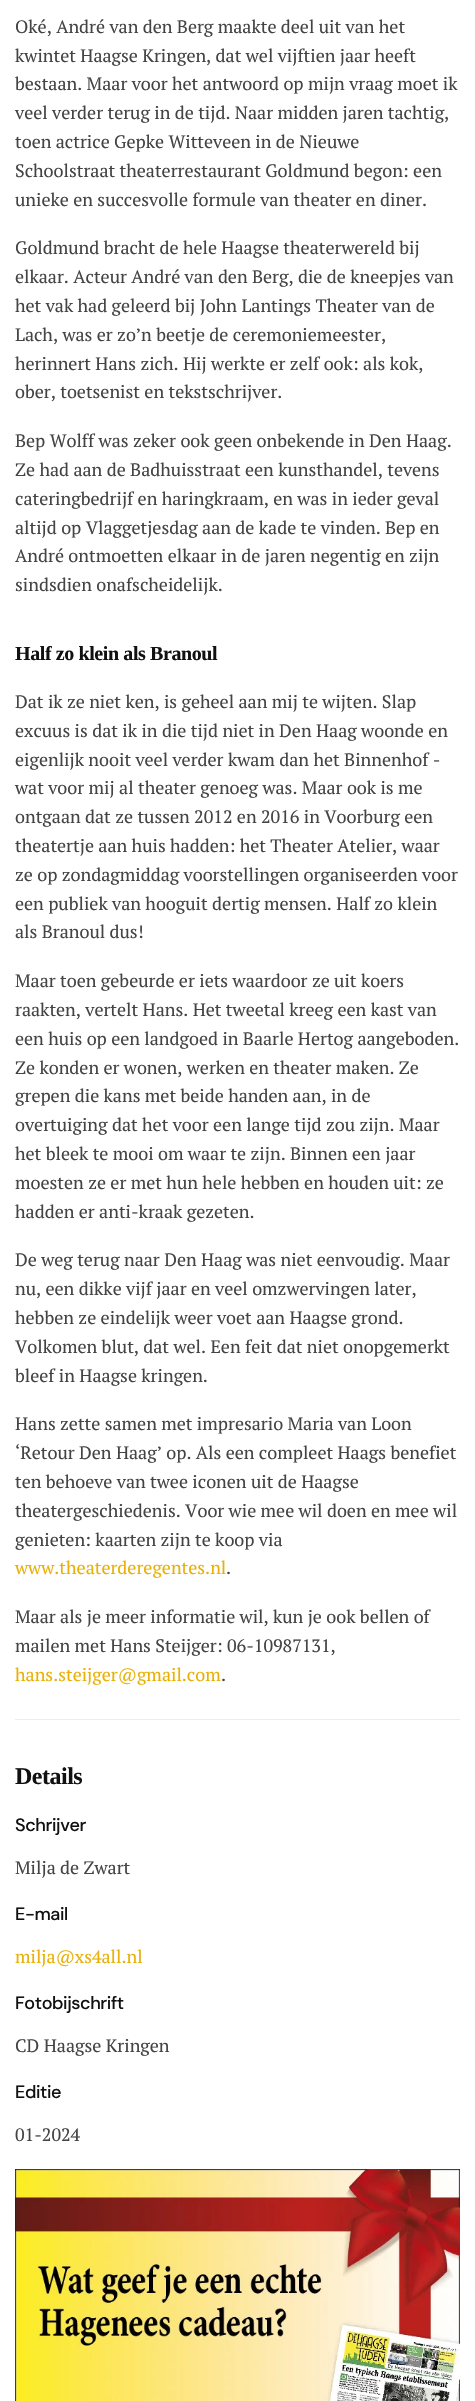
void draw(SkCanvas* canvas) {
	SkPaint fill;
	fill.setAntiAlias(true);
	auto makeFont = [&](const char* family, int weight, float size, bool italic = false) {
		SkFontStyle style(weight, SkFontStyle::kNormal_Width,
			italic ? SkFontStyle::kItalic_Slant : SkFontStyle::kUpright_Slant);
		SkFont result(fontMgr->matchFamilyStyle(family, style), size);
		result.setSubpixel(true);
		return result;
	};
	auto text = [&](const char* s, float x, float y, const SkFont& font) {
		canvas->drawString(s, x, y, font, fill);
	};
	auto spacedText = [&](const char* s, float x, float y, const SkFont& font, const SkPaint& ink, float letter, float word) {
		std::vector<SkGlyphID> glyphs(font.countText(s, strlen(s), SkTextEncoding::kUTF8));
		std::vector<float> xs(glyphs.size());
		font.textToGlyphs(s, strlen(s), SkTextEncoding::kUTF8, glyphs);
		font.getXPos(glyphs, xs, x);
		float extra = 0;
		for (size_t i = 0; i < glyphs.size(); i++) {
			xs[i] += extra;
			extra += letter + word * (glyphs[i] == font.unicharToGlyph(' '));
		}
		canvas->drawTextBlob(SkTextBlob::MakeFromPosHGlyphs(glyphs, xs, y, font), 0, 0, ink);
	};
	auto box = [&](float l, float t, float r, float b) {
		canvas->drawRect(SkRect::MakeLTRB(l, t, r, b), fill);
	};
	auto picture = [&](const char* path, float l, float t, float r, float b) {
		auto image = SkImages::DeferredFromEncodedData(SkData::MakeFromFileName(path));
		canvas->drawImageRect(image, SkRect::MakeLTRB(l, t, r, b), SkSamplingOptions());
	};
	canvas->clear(0xFFFFFFFF);
	fill.setColor(0xFFEDEDED);
	box(15, 1719, 460, 1720);
	picture("image0.png", 15, 2169, 460, 2401);
	auto font1 = makeFont("PT Serif", 400, 18);
	fill.setColor(0xFF444444);
	text("Oké, André van den Berg maakte deel uit van het", 15, 33, font1);
	text("kwintet Haagse Kringen, dat wel vijftien jaar heeft", 15, 62, font1);
	text("bestaan. Maar voor het antwoord op mijn vraag moet ik", 15, 90, font1);
	text("veel verder terug in de tijd. Naar midden jaren tachtig,", 15, 119, font1);
	text("toen actrice Gepke Witteveen in de Nieuwe", 15, 148, font1);
	text("Schoolstraat theaterrestaurant Goldmund begon: een", 15, 177, font1);
	text("unieke en succesvolle formule van theater en diner.", 15, 206, font1);
	text("Goldmund bracht de hele Haagse theaterwereld bij", 15, 254, font1);
	text("elkaar. Acteur André van den Berg, die de kneepjes van", 15, 283, font1);
	text("het vak had geleerd bij John Lantings Theater van de", 15, 312, font1);
	text("Lach, was er zo’n beetje de ceremoniemeester,", 15, 341, font1);
	text("herinnert Hans zich. Hij werkte er zelf ook: als kok,", 15, 370, font1);
	text("ober, toetsenist en tekstschrijver.", 15, 398, font1);
	text("Bep Wolff was zeker ook geen onbekende in Den Haag.", 15, 447, font1);
	text("Ze had aan de Badhuisstraat een kunsthandel, tevens", 15, 476, font1);
	text("cateringbedrijf en haringkraam, en was in ieder geval", 15, 505, font1);
	text("altijd op Vlaggetjesdag aan de kade te vinden. Bep en", 15, 534, font1);
	text("André ontmoetten elkaar in de jaren negentig en zijn", 15, 562, font1);
	text("sindsdien onafscheidelijk.", 15, 591, font1);
	auto font2 = makeFont("Liberation Serif", 700, 20);
	fill.setColor(0xFF111111);
	spacedText("Half zo klein als Branoul", 15, 660, font2, fill, -0.4f, 0);
	fill.setColor(0xFF444444);
	text("Dat ik ze niet ken, is geheel aan mij te wijten. Slap", 15, 708, font1);
	text("excuus is dat ik in die tijd niet in Den Haag woonde en", 15, 737, font1);
	text("eigenlijk nooit veel verder kwam dan het Binnenhof -", 15, 766, font1);
	text("wat voor mij al theater genoeg was. Maar ook is me", 15, 794, font1);
	text("ontgaan dat ze tussen 2012 en 2016 in Voorburg een", 15, 823, font1);
	text("theatertje aan huis hadden: het Theater Atelier, waar", 15, 852, font1);
	text("ze op zondagmiddag voorstellingen organiseerden voor", 15, 881, font1);
	text("een publiek van hooguit dertig mensen. Half zo klein", 15, 910, font1);
	text("als Branoul dus!", 15, 938, font1);
	text("Maar toen gebeurde er iets waardoor ze uit koers", 15, 987, font1);
	text("raakten, vertelt Hans. Het tweetal kreeg een kast van", 15, 1016, font1);
	text("een huis op een landgoed in Baarle Hertog aangeboden.", 15, 1045, font1);
	text("Ze konden er wonen, werken en theater maken. Ze", 15, 1074, font1);
	text("grepen die kans met beide handen aan, in de", 15, 1102, font1);
	text("overtuiging dat het voor een lange tijd zou zijn. Maar", 15, 1131, font1);
	text("het bleek te mooi om waar te zijn. Binnen een jaar", 15, 1160, font1);
	text("moesten ze er met hun hele hebben en houden uit: ze", 15, 1189, font1);
	text("hadden er anti-kraak gezeten.", 15, 1218, font1);
	text("De weg terug naar Den Haag was niet eenvoudig. Maar", 15, 1266, font1);
	text("nu, een dikke vijf jaar en veel omzwervingen later,", 15, 1295, font1);
	text("hebben ze eindelijk weer voet aan Haagse grond.", 15, 1324, font1);
	text("Volkomen blut, dat wel. Een feit dat niet onopgemerkt", 15, 1353, font1);
	text("bleef in Haagse kringen.", 15, 1382, font1);
	text("Hans zette samen met impresario Maria van Loon", 15, 1430, font1);
	text("‘Retour Den Haag’ op. Als een compleet Haags benefiet", 15, 1459, font1);
	text("ten behoeve van twee iconen uit de Haagse", 15, 1488, font1);
	text("theatergeschiedenis. Voor wie mee wil doen en mee wil", 15, 1517, font1);
	text("genieten: kaarten zijn te koop via", 15, 1546, font1);
	fill.setColor(0xFFE9B108);
	text("www.theaterderegentes.nl", 15, 1574, font1);
	fill.setColor(0xFF444444);
	text(".", 226, 1574, font1);
	text("Maar als je meer informatie wil, kun je ook bellen of", 15, 1623, font1);
	text("mailen met Hans Steijger: 06-10987131,", 15, 1652, font1);
	fill.setColor(0xFFE9B108);
	text("hans.steijger@gmail.com", 15, 1681, font1);
	fill.setColor(0xFF444444);
	text(".", 221, 1681, font1);
	auto font3 = makeFont("Liberation Serif", 700, 24);
	fill.setColor(0xFF111111);
	spacedText("Details", 15, 1784, font3, fill, -0.5f, 0);
	auto font4 = makeFont("DM Sans", 500, 18);
	spacedText("Schrijver", 15, 1831, font4, fill, -0.4f, 0);
	fill.setColor(0xFF444444);
	text("Milja de Zwart", 15, 1874, font1);
	fill.setColor(0xFF111111);
	spacedText("E-mail", 15, 1920, font4, fill, -0.4f, 0);
	fill.setColor(0xFFE9B108);
	text("milja@xs4all.nl", 15, 1963, font1);
	fill.setColor(0xFF111111);
	spacedText("Fotobijschrift", 15, 2009, font4, fill, -0.4f, 0);
	fill.setColor(0xFF444444);
	text("CD Haagse Kringen", 15, 2052, font1);
	fill.setColor(0xFF111111);
	spacedText("Editie", 15, 2098, font4, fill, -0.4f, 0);
	fill.setColor(0xFF444444);
	text("01-2024", 15, 2141, font1);
}
